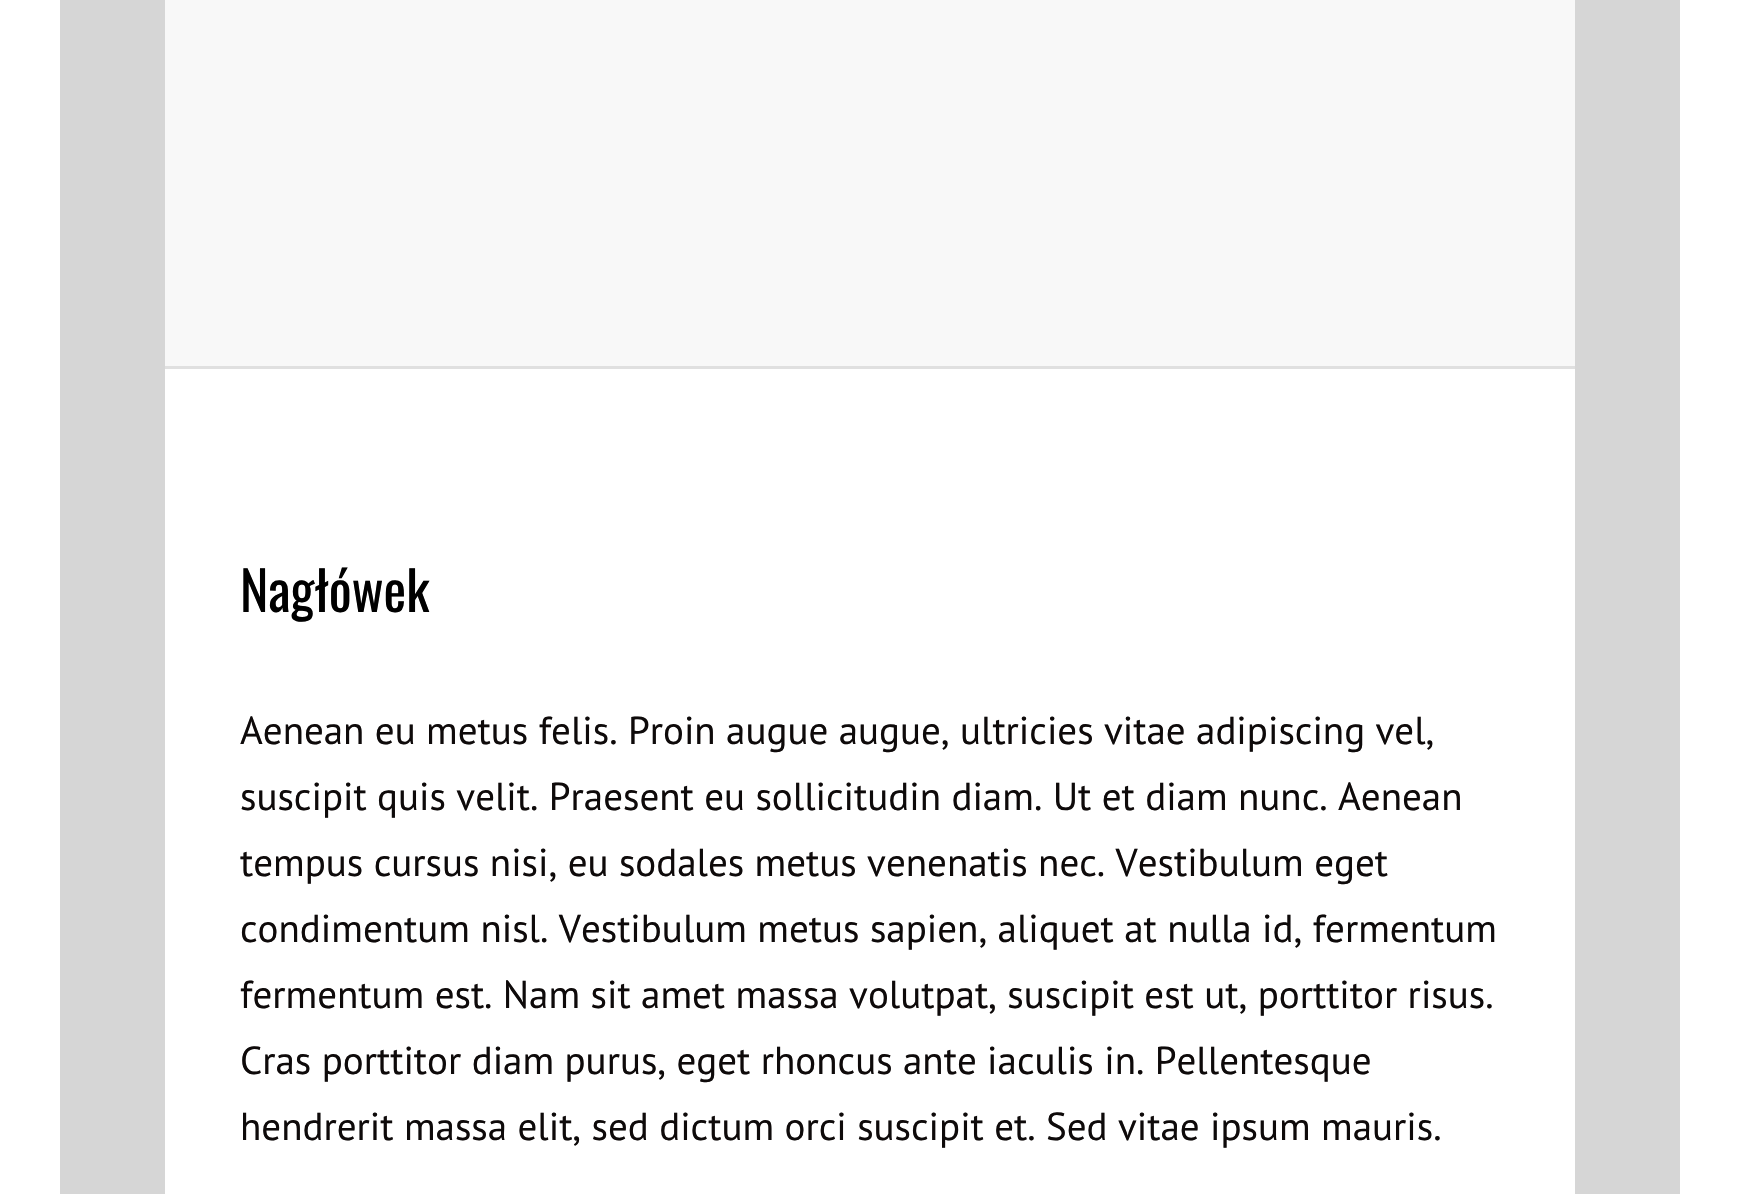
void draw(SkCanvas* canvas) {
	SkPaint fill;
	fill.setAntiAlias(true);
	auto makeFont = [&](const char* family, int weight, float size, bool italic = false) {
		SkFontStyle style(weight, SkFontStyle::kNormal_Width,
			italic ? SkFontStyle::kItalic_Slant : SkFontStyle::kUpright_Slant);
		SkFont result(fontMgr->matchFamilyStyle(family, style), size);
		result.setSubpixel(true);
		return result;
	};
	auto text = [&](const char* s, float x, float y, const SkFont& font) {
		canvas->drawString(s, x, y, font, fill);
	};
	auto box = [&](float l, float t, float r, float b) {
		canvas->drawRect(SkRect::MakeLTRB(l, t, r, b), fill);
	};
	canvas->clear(0xFFFFFFFF);
	fill.setColor(0xFFD6D6D6);
	box(60, 0, 1680, 1194);
	fill.setColor(0xFFFFFFFF);
	box(165, 369, 1575, 1194);
	fill.setColor(0xFFF8F8F8);
	box(165, 0, 1575, 366);
	fill.setColor(0xFFE0E0E0);
	box(165, 366, 1575, 369);
	auto font1 = makeFont("Oswald", 400, 54);
	fill.setColor(0xFF000000);
	text("Nagłówek", 240, 612, font1);
	auto font2 = makeFont("PT Sans", 400, 39);
	fill.setColor(0xFF0E0A0A);
	text("Aenean eu metus felis. Proin augue augue, ultricies vitae adipiscing vel,", 240, 744, font2);
	text("suscipit quis velit. Praesent eu sollicitudin diam. Ut et diam nunc. Aenean", 240, 810, font2);
	text("tempus cursus nisi, eu sodales metus venenatis nec. Vestibulum eget", 240, 876, font2);
	text("condimentum nisl. Vestibulum metus sapien, aliquet at nulla id, fermentum", 240, 942, font2);
	text("fermentum est. Nam sit amet massa volutpat, suscipit est ut, porttitor risus.", 240, 1008, font2);
	text("Cras porttitor diam purus, eget rhoncus ante iaculis in. Pellentesque", 240, 1074, font2);
	text("hendrerit massa elit, sed dictum orci suscipit et. Sed vitae ipsum mauris.", 240, 1140, font2);
}
